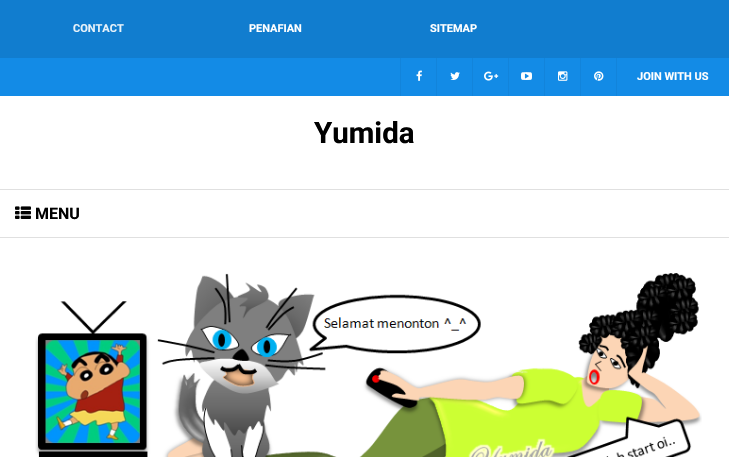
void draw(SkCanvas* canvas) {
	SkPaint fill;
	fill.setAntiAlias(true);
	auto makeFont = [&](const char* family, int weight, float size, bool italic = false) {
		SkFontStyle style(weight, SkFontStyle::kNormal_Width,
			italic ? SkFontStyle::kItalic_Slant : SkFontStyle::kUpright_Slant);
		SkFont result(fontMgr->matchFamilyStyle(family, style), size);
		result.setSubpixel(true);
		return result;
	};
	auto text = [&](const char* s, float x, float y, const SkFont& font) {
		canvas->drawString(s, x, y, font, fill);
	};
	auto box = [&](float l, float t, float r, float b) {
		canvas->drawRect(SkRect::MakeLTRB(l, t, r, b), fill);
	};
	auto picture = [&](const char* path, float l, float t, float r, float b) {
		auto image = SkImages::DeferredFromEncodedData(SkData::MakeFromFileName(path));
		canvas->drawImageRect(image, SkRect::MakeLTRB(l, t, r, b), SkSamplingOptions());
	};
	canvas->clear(0xFF138BE6);
	fill.setColor(0xFF117DCF);
	box(0, 0, 729, 58);
	fill.setColor(0xFF1284DB);
	box(436, 58, 437, 96);
	box(400, 58, 401, 96);
	picture("image0.png", 416, 70, 422, 81);
	box(472, 58, 473, 96);
	picture("image1.png", 450, 72, 460, 80);
	box(508, 58, 509, 96);
	picture("image2.png", 484, 71, 499, 81);
	box(544, 58, 545, 96);
	picture("image3.png", 521, 72, 532, 80);
	box(580, 58, 581, 96);
	picture("image4.png", 558, 71, 568, 81);
	box(616, 58, 617, 96);
	picture("image5.png", 594, 71, 604, 81);
	fill.setColor(0xFFFFFFFF);
	box(0, 96, 729, 237);
	fill.setColor(0xFFE0E0E0);
	box(0, 189, 729, 190);
	box(0, 237, 729, 238);
	picture("image6.png", 15, 206, 31, 219);
	fill.setColor(0xFFFFFFFF);
	box(0, 238, 729, 457);
	picture("image7.png", 35, 273, 702, 457);
	auto font1 = makeFont("Roboto", 700, 11);
	fill.setColor(0xFFE7F2FA);
	text("CONTACT", 73, 32, font1);
	fill.setColor(0xFFFFFFFF);
	text("PENAFIAN", 249, 32, font1);
	text("SITEMAP", 430, 32, font1);
	text("JOIN WITH US", 637, 80, font1);
	auto font2 = makeFont("Roboto", 700, 29.5f);
	fill.setColor(0xFF000000);
	text("Yumida", 314, 143, font2);
	auto font3 = makeFont("Roboto", 700, 16);
	text("MENU", 35, 219, font3);
}
